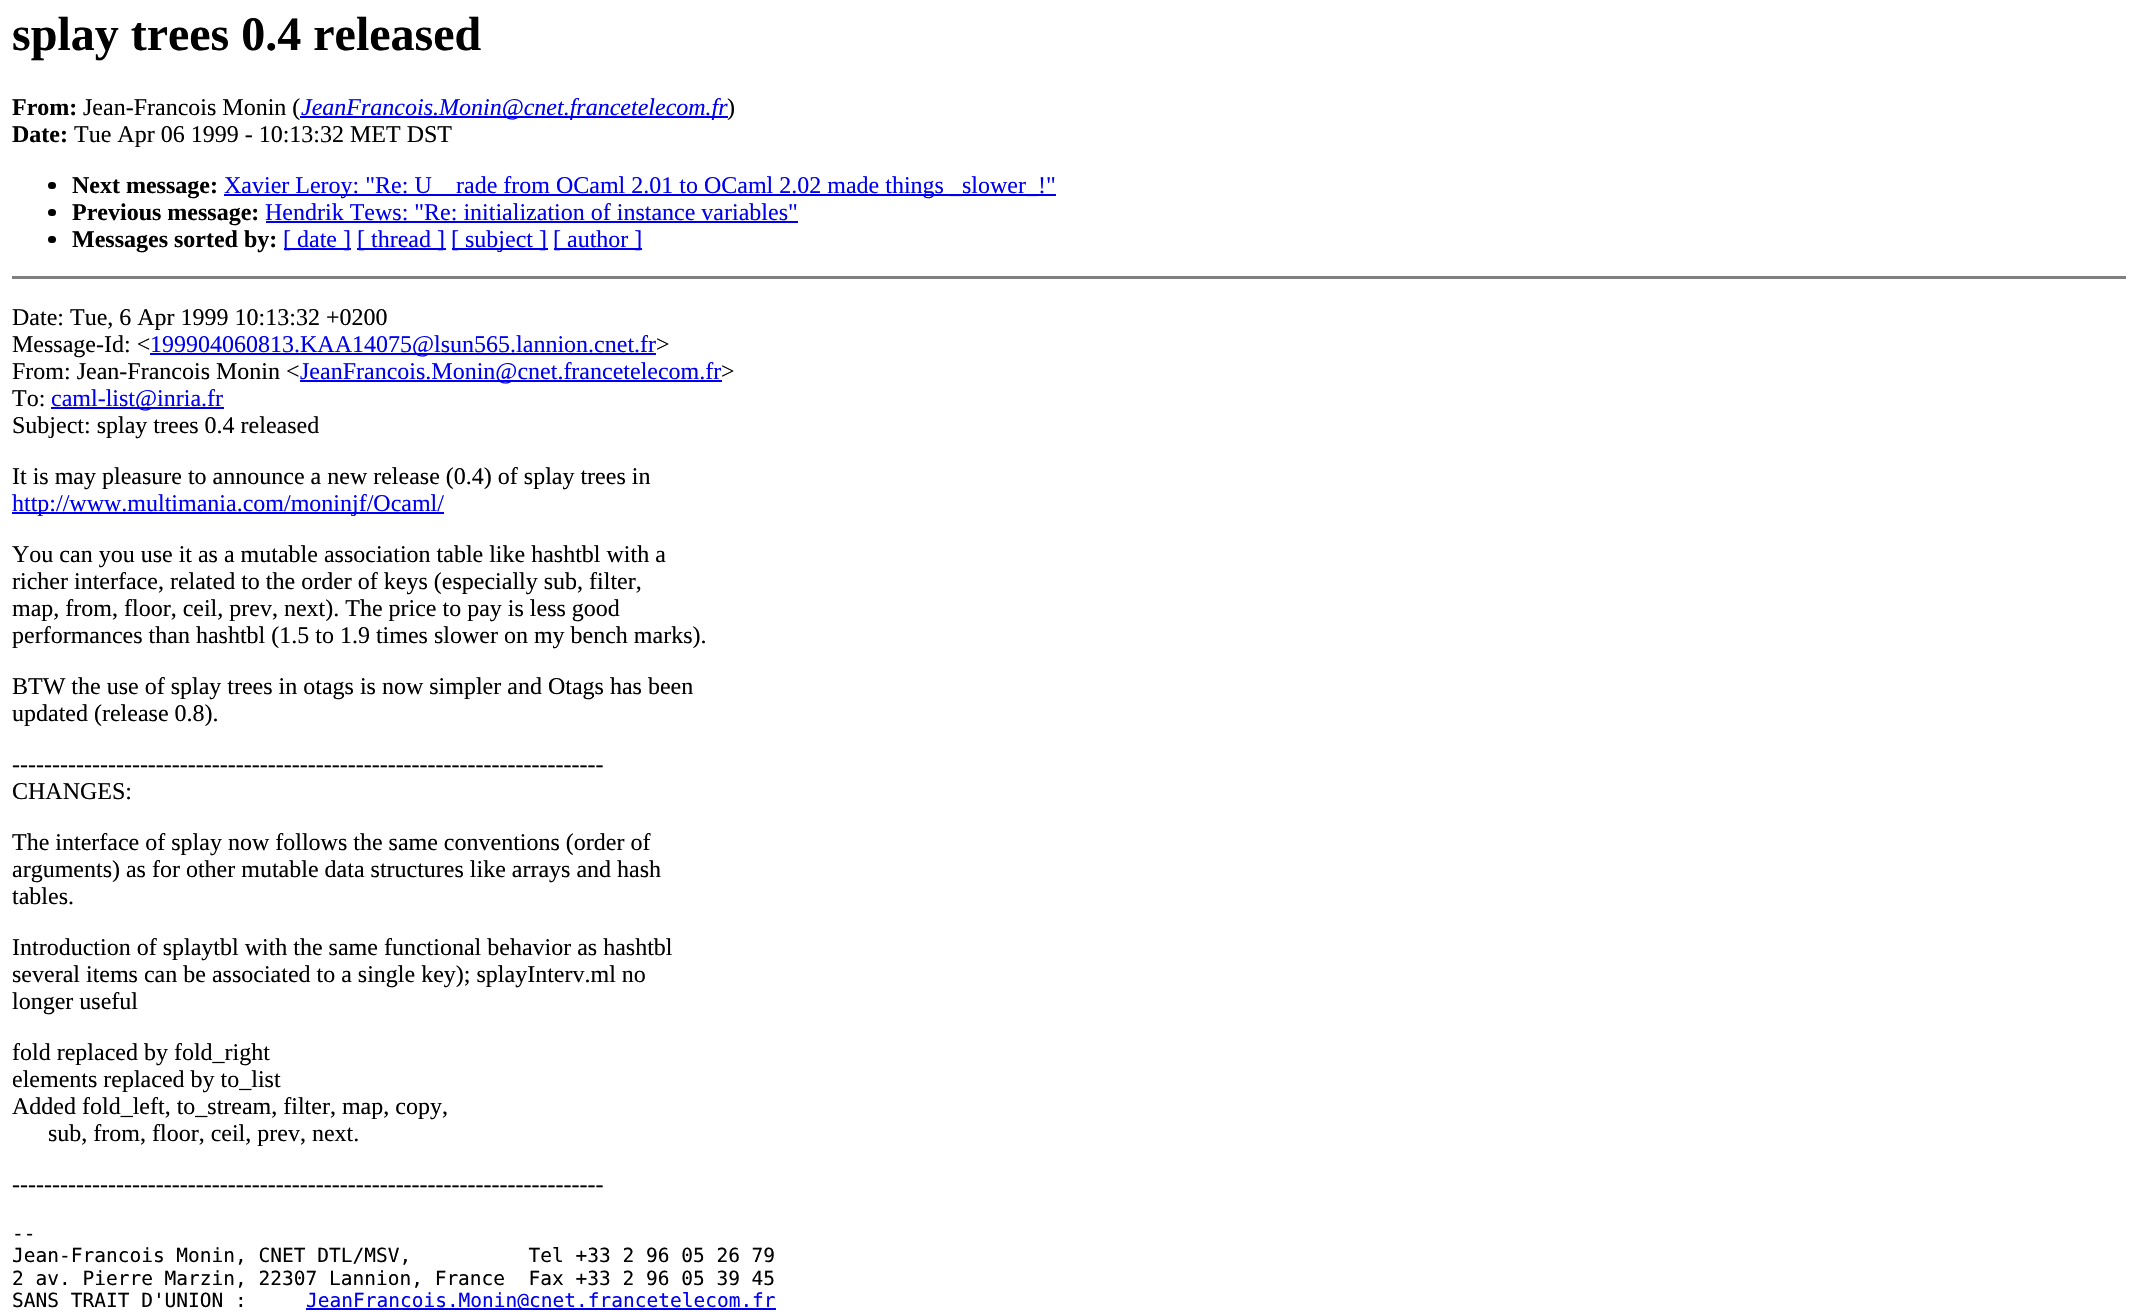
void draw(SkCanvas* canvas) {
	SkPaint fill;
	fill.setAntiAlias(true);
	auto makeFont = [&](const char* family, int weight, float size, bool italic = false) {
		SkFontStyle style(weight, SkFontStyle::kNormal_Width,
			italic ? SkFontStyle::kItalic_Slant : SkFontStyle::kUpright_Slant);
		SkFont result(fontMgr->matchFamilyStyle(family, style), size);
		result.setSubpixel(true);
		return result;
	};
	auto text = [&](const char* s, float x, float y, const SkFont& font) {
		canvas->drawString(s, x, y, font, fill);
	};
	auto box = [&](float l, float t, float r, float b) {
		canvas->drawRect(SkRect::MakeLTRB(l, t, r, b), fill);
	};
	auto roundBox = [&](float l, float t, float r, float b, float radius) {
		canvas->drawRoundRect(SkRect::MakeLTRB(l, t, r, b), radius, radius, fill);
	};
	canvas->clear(0xFFFFFFFF);
	fill.setColor(0xFF0000EE);
	box(300, 116, 728, 118);
	fill.setColor(0xFF000000);
	roundBox(48, 182, 56, 189, 3.5f);
	fill.setColor(0xFF0000EE);
	box(224, 194, 1056, 196);
	fill.setColor(0xFF000000);
	roundBox(48, 209, 56, 216, 3.5f);
	fill.setColor(0xFF0000EE);
	box(266, 221, 798, 223);
	fill.setColor(0xFF000000);
	roundBox(48, 236, 56, 243, 3.5f);
	fill.setColor(0xFF0000EE);
	box(284, 248, 351, 250);
	box(357, 248, 446, 250);
	box(452, 248, 548, 250);
	box(554, 248, 642, 250);
	fill.setColor(0xFF808080);
	box(12, 276, 2126, 279);
	fill.setColor(0xFF0000EE);
	box(150, 353, 656, 355);
	box(300, 380, 722, 382);
	box(51, 407, 224, 409);
	box(12, 512, 444, 514);
	box(306, 1308, 776, 1310);
	auto font1 = makeFont("Liberation Serif", 700, 48);
	fill.setColor(0xFF000000);
	text("splay trees 0.4 released", 12, 50, font1);
	auto font2 = makeFont("Liberation Serif", 700, 24);
	text("From:", 12, 115, font2);
	auto font3 = makeFont("Liberation Serif", 400, 24);
	text("Jean-Francois Monin (", 83, 115, font3);
	auto font4 = makeFont("Liberation Serif", 400, 24, true);
	fill.setColor(0xFF0000EE);
	text("JeanFrancois.Monin@cnet.francetelecom.fr", 301, 115, font4);
	fill.setColor(0xFF000000);
	text(")", 727, 115, font3);
	text("Date:", 12, 142, font2);
	text("Tue Apr 06 1999 - 10:13:32 MET DST", 74, 142, font3);
	text("Next message:", 72, 193, font2);
	fill.setColor(0xFF0000EE);
	text("Xavier Leroy: \"Re: U", 224, 193, font3);
	text("rade from OCaml 2.01 to OCaml 2.02 made things _slower_!\"", 456, 193, font3);
	fill.setColor(0xFF000000);
	text("Previous message:", 72, 220, font2);
	fill.setColor(0xFF0000EE);
	text("Hendrik Tews: \"Re: initialization of instance variables\"", 265, 220, font3);
	fill.setColor(0xFF000000);
	text("Messages sorted by:", 72, 247, font2);
	fill.setColor(0xFF0000EE);
	text("[ date ]", 283, 247, font3);
	text("[ thread ]", 357, 247, font3);
	text("[ subject ]", 451, 247, font3);
	text("[ author ]", 553, 247, font3);
	fill.setColor(0xFF000000);
	text("Date: Tue, 6 Apr 1999 10:13:32 +0200", 12, 325, font3);
	text("Message-Id: <", 12, 352, font3);
	fill.setColor(0xFF0000EE);
	text("199904060813.KAA14075@lsun565.lannion.cnet.fr", 150, 352, font3);
	fill.setColor(0xFF000000);
	text(">", 656, 352, font3);
	text("From: Jean-Francois Monin <", 12, 379, font3);
	fill.setColor(0xFF0000EE);
	text("JeanFrancois.Monin@cnet.francetelecom.fr", 300, 379, font3);
	fill.setColor(0xFF000000);
	text(">", 721, 379, font3);
	text("To:", 12, 406, font3);
	fill.setColor(0xFF0000EE);
	text("caml-list@inria.fr", 51, 406, font3);
	fill.setColor(0xFF000000);
	text("Subject: splay trees 0.4 released", 12, 433, font3);
	text("It is may pleasure to announce a new release (0.4) of splay trees in", 12, 484, font3);
	fill.setColor(0xFF0000EE);
	text("http://www.multimania.com/moninjf/Ocaml/", 12, 511, font3);
	fill.setColor(0xFF000000);
	text("You can you use it as a mutable association table like hashtbl with a", 12, 562, font3);
	text("richer interface, related to the order of keys (especially sub, filter,", 12, 589, font3);
	text("map, from, floor, ceil, prev, next). The price to pay is less good", 12, 616, font3);
	text("performances than hashtbl (1.5 to 1.9 times slower on my bench marks).", 12, 643, font3);
	text("BTW the use of splay trees in otags is now simpler and Otags has been", 12, 694, font3);
	text("updated (release 0.8).", 12, 721, font3);
	text("--------------------------------------------------------------------------", 12, 772, font3);
	text("CHANGES:", 12, 799, font3);
	text("The interface of splay now follows the same conventions (order of", 12, 850, font3);
	text("arguments) as for other mutable data structures like arrays and hash", 12, 877, font3);
	text("tables.", 12, 904, font3);
	text("Introduction of splaytbl with the same functional behavior as hashtbl", 12, 955, font3);
	text("several items can be associated to a single key); splayInterv.ml no", 12, 982, font3);
	text("longer useful", 12, 1009, font3);
	text("fold replaced by fold_right", 12, 1060, font3);
	text("elements replaced by to_list", 12, 1087, font3);
	text("Added fold_left, to_stream, filter, map, copy,", 12, 1114, font3);
	text("sub, from, floor, ceil, prev, next.", 48, 1141, font3);
	text("--------------------------------------------------------------------------", 12, 1192, font3);
	auto font5 = makeFont("DejaVu Sans Mono", 400, 19.5f);
	text("--", 12, 1240, font5);
	text("Jean-Francois Monin, CNET DTL/MSV,          Tel +33 2 96 05 26 79", 12, 1262, font5);
	text("2 av. Pierre Marzin, 22307 Lannion, France  Fax +33 2 96 05 39 45", 12, 1285, font5);
	text("SANS TRAIT D'UNION :", 12, 1307, font5);
	fill.setColor(0xFF0000EE);
	text("JeanFrancois.Monin@cnet.francetelecom.fr", 306, 1307, font5);
}
